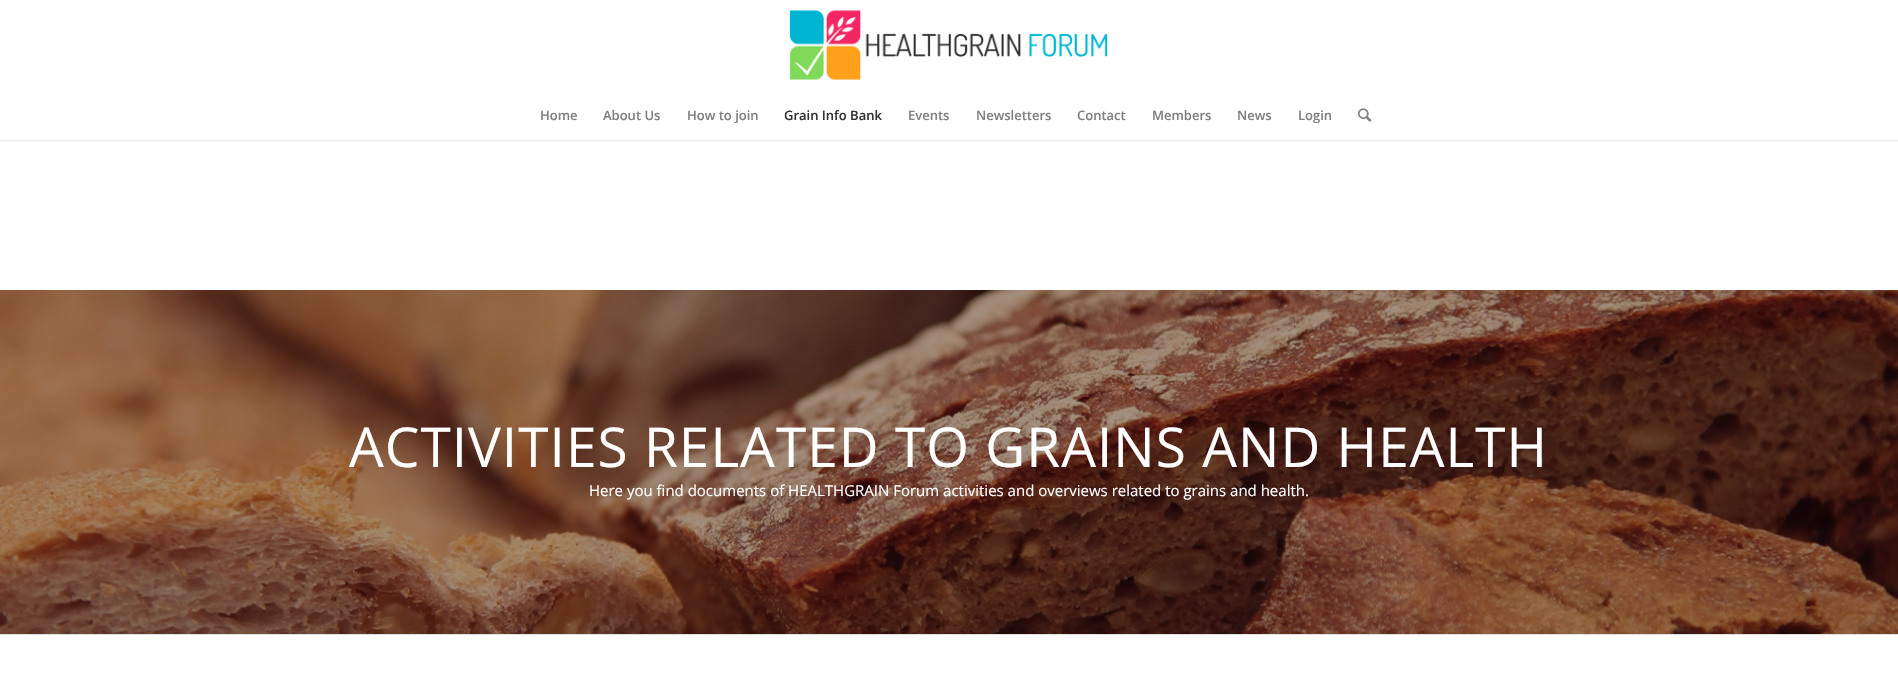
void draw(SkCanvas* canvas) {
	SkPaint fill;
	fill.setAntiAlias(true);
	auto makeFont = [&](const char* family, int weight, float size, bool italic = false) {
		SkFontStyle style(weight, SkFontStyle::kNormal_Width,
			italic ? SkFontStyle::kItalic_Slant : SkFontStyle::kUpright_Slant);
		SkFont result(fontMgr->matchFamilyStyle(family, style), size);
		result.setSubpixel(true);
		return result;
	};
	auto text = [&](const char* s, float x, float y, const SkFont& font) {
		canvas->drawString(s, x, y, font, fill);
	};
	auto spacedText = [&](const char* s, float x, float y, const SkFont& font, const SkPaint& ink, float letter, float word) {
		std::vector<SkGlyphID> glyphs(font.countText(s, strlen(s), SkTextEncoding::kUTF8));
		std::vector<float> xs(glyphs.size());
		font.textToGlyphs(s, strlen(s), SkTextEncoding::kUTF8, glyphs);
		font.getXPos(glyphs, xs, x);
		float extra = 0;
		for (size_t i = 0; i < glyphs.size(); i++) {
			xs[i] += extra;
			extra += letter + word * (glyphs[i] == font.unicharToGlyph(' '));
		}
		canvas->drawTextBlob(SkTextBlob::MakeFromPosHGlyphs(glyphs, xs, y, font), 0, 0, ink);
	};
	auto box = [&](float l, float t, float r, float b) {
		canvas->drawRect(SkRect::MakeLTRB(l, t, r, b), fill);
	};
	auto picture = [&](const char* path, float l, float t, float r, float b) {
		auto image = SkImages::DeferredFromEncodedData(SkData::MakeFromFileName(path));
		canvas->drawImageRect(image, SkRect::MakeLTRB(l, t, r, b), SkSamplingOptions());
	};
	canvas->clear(0xFFFFFFFF);
	canvas->save();
	canvas->clipRect(SkRect::MakeLTRB(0, 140, 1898, 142));
	fill.setColor(0x1A000000);
	fill.setMaskFilter(SkMaskFilter::MakeBlur(kNormal_SkBlurStyle, 1));
	canvas->drawRect(SkRect::MakeLTRB(-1, -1, 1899, 141), fill);
	fill.setMaskFilter(nullptr);
	canvas->restore();
	picture("image0.png", 789, 10, 1108, 80);
	picture("image1.png", 1358, 108, 1372, 122);
	picture("image2.png", 0, 290, 1898, 634);
	fill.setColor(0xFFE1E1E1);
	box(0, 634, 1898, 635);
	auto font1 = makeFont("Open Sans", 600, 13);
	fill.setColor(0xFF808080);
	text("Home", 540, 120, font1);
	text("About Us", 603, 120, font1);
	text("How to join", 687, 120, font1);
	fill.setColor(0xFF333333);
	text("Grain Info Bank", 784, 120, font1);
	fill.setColor(0xFF808080);
	text("Events", 908, 120, font1);
	text("Newsletters", 976, 120, font1);
	text("Contact", 1077, 120, font1);
	text("Members", 1152, 120, font1);
	text("News", 1237, 120, font1);
	text("Login", 1298, 120, font1);
	auto font2 = makeFont("Open Sans", 400, 55);
	fill.setColor(0xFFFFFFFF);
	spacedText("ACTIVITIES RELATED TO GRAINS AND HEALTH", 349, 467, font2, fill, 1, 0);
	auto font3 = makeFont("Open Sans", 400, 15);
	text("Here you find documents of HEALTHGRAIN Forum activities and overviews related to grains and health.", 589, 496, font3);
}
